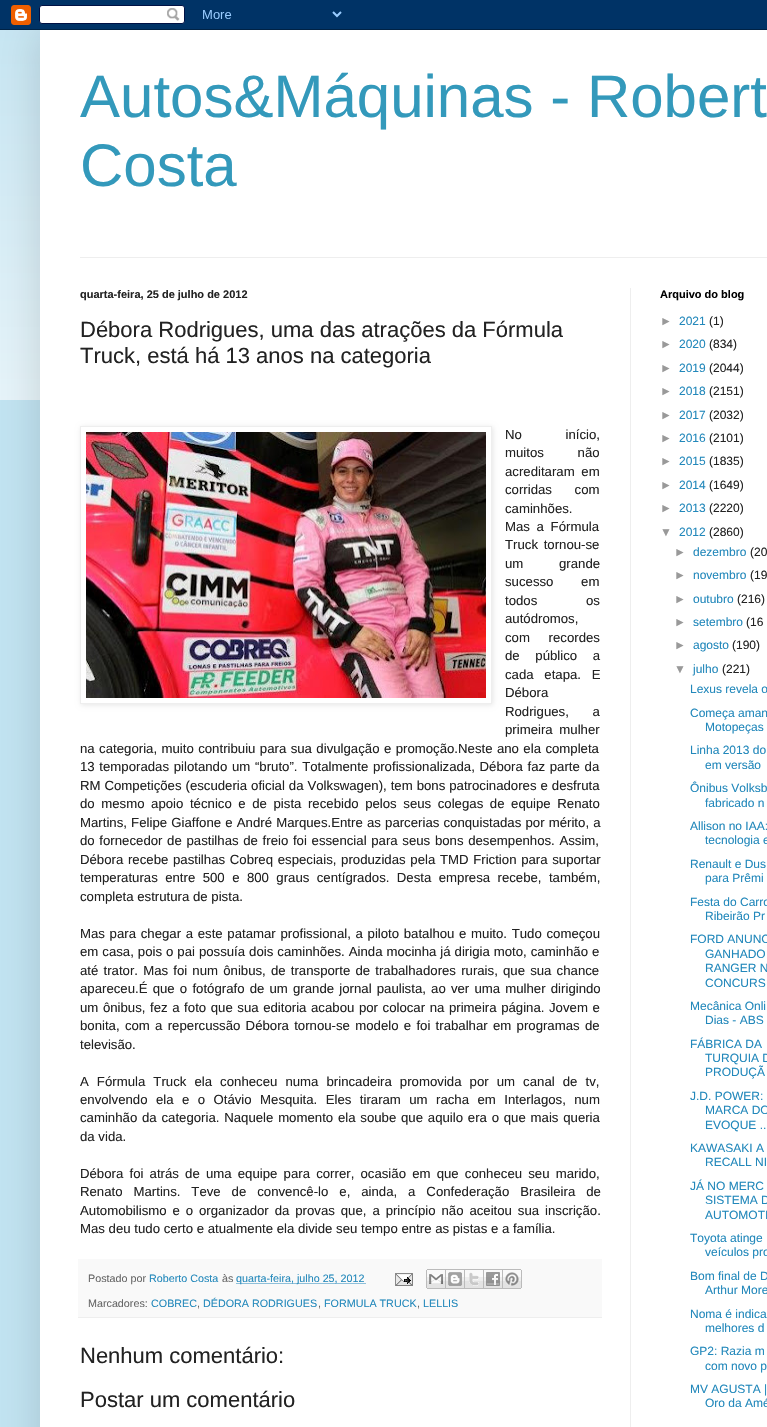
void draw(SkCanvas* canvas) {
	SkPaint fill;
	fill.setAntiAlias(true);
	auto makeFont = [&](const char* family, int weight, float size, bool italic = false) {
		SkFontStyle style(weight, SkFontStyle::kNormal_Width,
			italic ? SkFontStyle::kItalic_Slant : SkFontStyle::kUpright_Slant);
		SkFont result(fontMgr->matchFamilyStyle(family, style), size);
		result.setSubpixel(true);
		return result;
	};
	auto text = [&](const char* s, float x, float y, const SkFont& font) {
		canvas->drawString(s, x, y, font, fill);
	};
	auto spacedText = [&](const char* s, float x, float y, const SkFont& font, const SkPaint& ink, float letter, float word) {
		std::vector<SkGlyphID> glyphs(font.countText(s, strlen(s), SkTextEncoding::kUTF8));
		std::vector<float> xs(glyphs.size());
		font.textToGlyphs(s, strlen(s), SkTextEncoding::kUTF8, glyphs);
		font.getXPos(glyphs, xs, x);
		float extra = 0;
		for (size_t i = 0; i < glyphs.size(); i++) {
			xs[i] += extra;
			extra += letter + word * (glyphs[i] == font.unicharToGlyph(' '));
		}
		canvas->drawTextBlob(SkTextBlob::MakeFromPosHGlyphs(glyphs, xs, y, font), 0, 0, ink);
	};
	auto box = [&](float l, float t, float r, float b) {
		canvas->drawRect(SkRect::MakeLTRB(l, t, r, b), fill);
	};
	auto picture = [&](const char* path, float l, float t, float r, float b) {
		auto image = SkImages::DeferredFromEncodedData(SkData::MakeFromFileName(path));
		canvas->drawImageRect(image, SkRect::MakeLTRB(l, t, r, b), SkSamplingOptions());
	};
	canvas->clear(0xFFC2E4F2);
	picture("image1.png", 0, 30, 40, 400);
	fill.setColor(0x26000000);
	fill.setMaskFilter(SkMaskFilter::MakeBlur(kNormal_SkBlurStyle, 20));
	canvas->drawRect(SkRect::MakeLTRB(40, 30, 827, 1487), fill);
	fill.setMaskFilter(nullptr);
	picture("image0.png", 0, 0, 767, 30);
	fill.setColor(0xFFFFFFFF);
	box(40, 30, 767, 1427);
	fill.setColor(0xFFEEEEEE);
	box(80, 257, 767, 258);
	box(630, 288, 631, 1427);
	canvas->save();
	canvas->clipPath(SkPathBuilder(SkPathFillType::kEvenOdd).moveTo(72, 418).lineTo(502, 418).lineTo(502, 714).lineTo(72, 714).close().moveTo(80, 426).lineTo(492, 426).lineTo(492, 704).lineTo(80, 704).close().detach(), true);
	fill.setColor(0x1A000000);
	fill.setMaskFilter(SkMaskFilter::MakeBlur(kNormal_SkBlurStyle, 2.5f));
	canvas->drawRect(SkRect::MakeLTRB(81, 427, 493, 705), fill);
	fill.setMaskFilter(nullptr);
	canvas->restore();
	fill.setStyle(SkPaint::kStroke_Style);
	fill.setStrokeWidth(1);
	fill.setColor(0xFFEEEEEE);
	canvas->drawRect(SkRect::MakeLTRB(80.5f, 426.5f, 491.5f, 703.5f), fill);
	picture("image2.png", 86, 432, 486, 698);
	fill.setStyle(SkPaint::kFill_Style);
	fill.setColor(0xFFF9F9F9);
	box(78, 1259, 602, 1317);
	fill.setColor(0xFFEEEEEE);
	box(78, 1317, 602, 1318);
	fill.setStyle(SkPaint::kStroke_Style);
	fill.setColor(0xFF2288BB);
	fill.setPathEffect(SkDashPathEffect::Make({{1, 1}}, 0));
	canvas->drawPath(SkPathBuilder().moveTo(236.5f, 1283.5f).lineTo(365.5f, 1283.5f).detach(), fill);
	fill.setPathEffect(nullptr);
	picture("image3.png", 395, 1273, 413, 1286);
	picture("image4.png", 426, 1269, 446, 1289);
	picture("image5.png", 446, 1269, 465, 1289);
	picture("image6.png", 465, 1269, 484, 1289);
	picture("image7.png", 484, 1269, 503, 1289);
	picture("image8.png", 503, 1269, 522, 1289);
	auto font1 = makeFont("Liberation Sans", 400, 60);
	fill.setStyle(SkPaint::kFill_Style);
	fill.setColor(0xFF3399BB);
	text("Autos&Máquinas - Robert", 80, 117, font1);
	text("Costa", 80, 186, font1);
	auto font2 = makeFont("Liberation Sans", 700, 11);
	fill.setColor(0xFF222222);
	text("quarta-feira, 25 de julho de 2012", 80, 298, font2);
	auto font3 = makeFont("Liberation Sans", 400, 22);
	text("Débora Rodrigues, uma das atrações da Fórmula", 80, 337, font3);
	text("Truck, está há 13 anos na categoria", 80, 363, font3);
	auto font4 = makeFont("Liberation Sans", 400, 13.2f);
	spacedText("No início,", 505, 439, font4, fill, 0, 40);
	spacedText("muitos não", 505, 457, font4, fill, 0, 30);
	spacedText("acreditaram em", 505, 476, font4, fill, 0, 3);
	spacedText("corridas com", 505, 494, font4, fill, 0, 19);
	text("caminhões.", 505, 513, font4);
	spacedText("Mas a Fórmula", 505, 531, font4, fill, 0, 3);
	spacedText("Truck tornou-se", 505, 549, font4, fill, 0, 2);
	spacedText("um grande", 505, 568, font4, fill, 0, 32);
	spacedText("sucesso em", 505, 586, font4, fill, 0, 24);
	spacedText("todos os", 505, 605, font4, fill, 0, 45);
	text("autódromos,", 505, 623, font4);
	spacedText("com recordes", 505, 642, font4, fill, 0, 15);
	spacedText("de público a", 505, 660, font4, fill, 0, 12);
	spacedText("cada etapa. E", 505, 679, font4, fill, 0, 7);
	text("Débora", 505, 697, font4);
	spacedText("Rodrigues, a", 505, 716, font4, fill, 0, 20);
	spacedText("primeira mulher", 505, 734, font4, fill, 0, 3);
	spacedText("na categoria, muito contribuiu para sua divulgação e promoção.Neste ano ela completa", 80, 753, font4, fill, 0, 0.75f);
	spacedText("13 temporadas pilotando um “bruto”. Totalmente profissionalizada, Débora faz parte da", 80, 771, font4, fill, 0, 1);
	spacedText("RM Competições (escuderia oficial da Volkswagen), tem bons patrocinadores e desfruta", 80, 790, font4, fill, 0, 0.3f);
	spacedText("do mesmo apoio técnico e de pista recebido pelos seus colegas de equipe Renato", 80, 808, font4, fill, 0, 2.9f);
	spacedText("Martins, Felipe Giaffone e André Marques.Entre as parcerias conquistadas por mérito, a", 80, 827, font4, fill, 0, 0.5f);
	spacedText("do fornecedor de pastilhas de freio foi essencial para seus bons desempenhos. Assim,", 80, 845, font4, fill, 0, 1);
	spacedText("Débora recebe pastilhas Cobreq especiais, produzidas pela TMD Friction para suportar", 80, 864, font4, fill, 0, 1);
	spacedText("temperaturas entre 500 e 800 graus centígrados. Desta empresa recebe, também,", 80, 882, font4, fill, 0, 3.75f);
	text("completa estrutura de pista.", 80, 901, font4);
	spacedText("Mas para chegar a este patamar profissional, a piloto batalhou e muito. Tudo começou", 80, 938, font4, fill, 0, 1);
	spacedText("em casa, pois o pai possuía dois caminhões. Ainda mocinha já dirigia moto, caminhão e", 80, 956, font4, fill, 0, 0.3f);
	spacedText("até trator. Mas foi num ônibus, de transporte de trabalhadores rurais, que sua chance", 80, 975, font4, fill, 0, 1.5f);
	spacedText("apareceu.É que o fotógrafo de um grande jornal paulista, ao ver uma mulher dirigindo", 80, 993, font4, fill, 0, 1.5f);
	spacedText("um ônibus, fez a foto que sua editoria acabou por colocar na primeira página. Jovem e", 80, 1012, font4, fill, 0, 0.9f);
	spacedText("bonita, com a repercussão Débora tornou-se modelo e foi trabalhar em programas de", 80, 1030, font4, fill, 0, 1.6f);
	text("televisão.", 80, 1049, font4);
	spacedText("A Fórmula Truck ela conheceu numa brincadeira promovida por um canal de tv,", 80, 1086, font4, fill, 0, 4.4f);
	spacedText("envolvendo ela e o Otávio Mesquita. Eles tiraram um racha em Interlagos, num", 80, 1104, font4, fill, 0, 4.75f);
	spacedText("caminhão da categoria. Naquele momento ela soube que aquilo era o que mais queria", 80, 1122, font4, fill, 0, 1.1f);
	text("da vida.", 80, 1141, font4);
	spacedText("Débora foi atrás de uma equipe para correr, ocasião em que conheceu seu marido,", 80, 1178, font4, fill, 0, 2.5f);
	spacedText("Renato Martins. Teve de convencê-lo e, ainda, a Confederação Brasileira de", 80, 1196, font4, fill, 0, 7.25f);
	spacedText("Automobilismo e o organizador da provas que, a princípio não aceitou sua inscrição.", 80, 1215, font4, fill, 0, 2.25f);
	text("Mas deu tudo certo e atualmente ela divide seu tempo entre as pistas e a família.", 80, 1233, font4);
	auto font5 = makeFont("Liberation Sans", 400, 10.75f);
	fill.setColor(0xFF666666);
	text("Postado por", 88, 1282, font5);
	fill.setColor(0xFF2288BB);
	text("Roberto Costa", 149, 1282, font5);
	fill.setColor(0xFF666666);
	text("às", 222, 1282, font5);
	fill.setColor(0xFF2288BB);
	text("quarta-feira, julho 25, 2012", 236, 1282, font5);
	fill.setColor(0xFF666666);
	text("Marcadores:", 88, 1307, font5);
	fill.setColor(0xFF2288BB);
	text("COBREC", 151, 1307, font5);
	fill.setColor(0xFF666666);
	text(",", 197, 1307, font5);
	fill.setColor(0xFF2288BB);
	text("DÉDORA RODRIGUES", 203, 1307, font5);
	fill.setColor(0xFF666666);
	text(",", 318, 1307, font5);
	fill.setColor(0xFF2288BB);
	text("FORMULA TRUCK", 324, 1307, font5);
	fill.setColor(0xFF666666);
	text(",", 417, 1307, font5);
	fill.setColor(0xFF2288BB);
	text("LELLIS", 423, 1307, font5);
	fill.setColor(0xFF222222);
	text("Nenhum comentário:", 80, 1363, font3);
	text("Postar um comentário", 80, 1407, font3);
	fill.setColor(0xFF000000);
	text("Arquivo do blog", 660, 298, font2);
	auto font6 = makeFont("Liberation Sans", 400, 12);
	fill.setColor(0xFF999999);
	text("►", 660, 325, font6);
	fill.setColor(0xFF2288BB);
	text("2021", 679, 325, font6);
	fill.setColor(0xFF222222);
	text("(1)", 709, 325, font6);
	fill.setColor(0xFF999999);
	text("►", 660, 348, font6);
	fill.setColor(0xFF2288BB);
	text("2020", 679, 348, font6);
	fill.setColor(0xFF222222);
	text("(834)", 709, 348, font6);
	fill.setColor(0xFF999999);
	text("►", 660, 372, font6);
	fill.setColor(0xFF2288BB);
	text("2019", 679, 372, font6);
	fill.setColor(0xFF222222);
	text("(2044)", 709, 372, font6);
	fill.setColor(0xFF999999);
	text("►", 660, 395, font6);
	fill.setColor(0xFF2288BB);
	text("2018", 679, 395, font6);
	fill.setColor(0xFF222222);
	text("(2151)", 709, 395, font6);
	fill.setColor(0xFF999999);
	text("►", 660, 419, font6);
	fill.setColor(0xFF2288BB);
	text("2017", 679, 419, font6);
	fill.setColor(0xFF222222);
	text("(2032)", 709, 419, font6);
	fill.setColor(0xFF999999);
	text("►", 660, 442, font6);
	fill.setColor(0xFF2288BB);
	text("2016", 679, 442, font6);
	fill.setColor(0xFF222222);
	text("(2101)", 709, 442, font6);
	fill.setColor(0xFF999999);
	text("►", 660, 465, font6);
	fill.setColor(0xFF2288BB);
	text("2015", 679, 465, font6);
	fill.setColor(0xFF222222);
	text("(1835)", 709, 465, font6);
	fill.setColor(0xFF999999);
	text("►", 660, 489, font6);
	fill.setColor(0xFF2288BB);
	text("2014", 679, 489, font6);
	fill.setColor(0xFF222222);
	text("(1649)", 709, 489, font6);
	fill.setColor(0xFF999999);
	text("►", 660, 512, font6);
	fill.setColor(0xFF2288BB);
	text("2013", 679, 512, font6);
	fill.setColor(0xFF222222);
	text("(2220)", 709, 512, font6);
	fill.setColor(0xFF999999);
	text("▼", 660, 536, font6);
	fill.setColor(0xFF2288BB);
	text("2012", 679, 536, font6);
	fill.setColor(0xFF222222);
	text("(2860)", 709, 536, font6);
	fill.setColor(0xFF999999);
	text("►", 674, 556, font6);
	fill.setColor(0xFF2288BB);
	text("dezembro", 693, 556, font6);
	fill.setColor(0xFF222222);
	text("(20", 750, 556, font6);
	fill.setColor(0xFF999999);
	text("►", 674, 579, font6);
	fill.setColor(0xFF2288BB);
	text("novembro", 693, 579, font6);
	fill.setColor(0xFF222222);
	text("(19", 750, 579, font6);
	fill.setColor(0xFF999999);
	text("►", 674, 603, font6);
	fill.setColor(0xFF2288BB);
	text("outubro", 693, 603, font6);
	fill.setColor(0xFF222222);
	text("(216)", 737, 603, font6);
	fill.setColor(0xFF999999);
	text("►", 674, 626, font6);
	fill.setColor(0xFF2288BB);
	text("setembro", 693, 626, font6);
	fill.setColor(0xFF222222);
	text("(16", 746, 626, font6);
	fill.setColor(0xFF999999);
	text("►", 674, 649, font6);
	fill.setColor(0xFF2288BB);
	text("agosto", 693, 649, font6);
	fill.setColor(0xFF222222);
	text("(190)", 732, 649, font6);
	fill.setColor(0xFF999999);
	text("▼", 674, 673, font6);
	fill.setColor(0xFF2288BB);
	text("julho", 693, 673, font6);
	fill.setColor(0xFF222222);
	text("(221)", 722, 673, font6);
	fill.setColor(0xFF2288BB);
	text("Lexus revela o", 690, 693, font6);
	text("Começa aman", 690, 717, font6);
	text("Motopeças", 705, 731, font6);
	text("Linha 2013 do", 690, 754, font6);
	text("em versão", 705, 769, font6);
	text("Ônibus Volksb", 690, 792, font6);
	text("fabricado n", 705, 807, font6);
	text("Allison no IAA:", 690, 830, font6);
	text("tecnologia e", 705, 844, font6);
	text("Renault e Dus", 690, 868, font6);
	text("para Prêmi", 705, 882, font6);
	text("Festa do Carro", 690, 906, font6);
	text("Ribeirão Pr", 705, 920, font6);
	text("FORD ANUNC", 690, 943, font6);
	text("GANHADO", 705, 958, font6);
	text("RANGER N", 705, 972, font6);
	text("CONCURS", 705, 987, font6);
	text("Mecânica Onli", 690, 1010, font6);
	text("Dias - ABS", 705, 1024, font6);
	text("FÁBRICA DA", 690, 1048, font6);
	text("TURQUIA D", 705, 1062, font6);
	text("PRODUÇÃ", 705, 1076, font6);
	text("J.D. POWER:", 690, 1100, font6);
	text("MARCA DO", 705, 1114, font6);
	text("EVOQUE ..", 705, 1129, font6);
	text("KAWASAKI A", 690, 1152, font6);
	text("RECALL NI", 705, 1166, font6);
	text("JÁ NO MERC", 690, 1190, font6);
	text("SISTEMA D", 705, 1204, font6);
	text("AUTOMOTI", 705, 1219, font6);
	text("Toyota atinge", 690, 1242, font6);
	text("veículos pro", 705, 1256, font6);
	text("Bom final de D", 690, 1280, font6);
	text("Arthur More", 705, 1294, font6);
	text("Noma é indica", 690, 1318, font6);
	text("melhores d", 705, 1332, font6);
	text("GP2: Razia m", 690, 1355, font6);
	text("com novo p", 705, 1370, font6);
	text("MV AGUSTA |", 690, 1393, font6);
	text("Oro da Amé", 705, 1407, font6);
}
